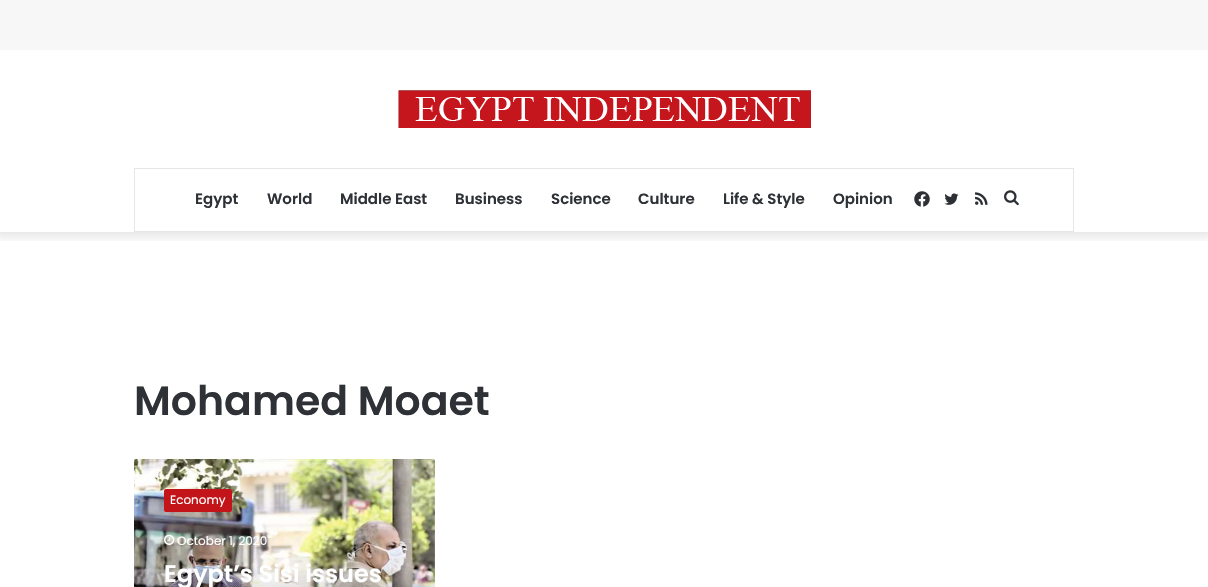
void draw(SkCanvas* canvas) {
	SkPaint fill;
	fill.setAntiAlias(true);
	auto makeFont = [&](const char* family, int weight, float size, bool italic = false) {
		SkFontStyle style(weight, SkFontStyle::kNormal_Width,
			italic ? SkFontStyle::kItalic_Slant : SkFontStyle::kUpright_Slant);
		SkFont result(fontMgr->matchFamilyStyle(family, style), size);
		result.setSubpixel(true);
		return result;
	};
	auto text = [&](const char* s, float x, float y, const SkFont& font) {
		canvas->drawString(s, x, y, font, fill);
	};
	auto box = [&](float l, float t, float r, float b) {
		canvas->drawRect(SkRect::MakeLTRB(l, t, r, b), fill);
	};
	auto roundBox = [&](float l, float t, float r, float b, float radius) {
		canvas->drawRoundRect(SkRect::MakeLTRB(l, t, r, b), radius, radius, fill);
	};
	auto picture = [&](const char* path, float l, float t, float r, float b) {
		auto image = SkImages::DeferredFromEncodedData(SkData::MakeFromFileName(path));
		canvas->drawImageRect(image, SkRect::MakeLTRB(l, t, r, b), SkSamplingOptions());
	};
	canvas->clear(0xFFF7F7F7);
	fill.setColor(0xFFFFFFFF);
	box(0, 50, 1208, 587);
	canvas->save();
	canvas->clipRect(SkRect::MakeLTRB(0, 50, 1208, 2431));
	canvas->clipRect(SkRect::MakeLTRB(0, 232, 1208, 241));
	fill.setColor(0x1A000000);
	fill.setMaskFilter(SkMaskFilter::MakeBlur(kNormal_SkBlurStyle, 5));
	canvas->drawRect(SkRect::MakeLTRB(-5, 45, 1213, 237), fill);
	fill.setMaskFilter(nullptr);
	canvas->restore();
	picture("image0.png", 398, 90, 811, 128);
	fill.setStyle(SkPaint::kStroke_Style);
	fill.setStrokeWidth(1);
	fill.setColor(0xFFE6E6E6);
	canvas->drawRect(SkRect::MakeLTRB(134.5f, 168.5f, 1073.5f, 231.5f), fill);
	picture("image1.png", 914, 191, 930, 207);
	picture("image2.png", 944, 193, 959, 205);
	picture("image3.png", 975, 192, 988, 205);
	picture("image4.png", 1004, 190, 1019, 206);
	picture("image5.png", 134, 459, 435, 587);
	fill.setStyle(SkPaint::kFill_Style);
	fill.setColor(0xFFC31419);
	roundBox(164, 489, 232, 512, 2);
	picture("image6.png", 164, 534, 175, 545);
	{
		const SkColor colors[] = {0x00000000, 0xBF000000};
		const float stops[] = {0, 1};
		const SkPoint ends[] = {{285, 564}, {285, 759}};
		fill.setShader(SkGradientShader::MakeLinear(ends, colors, stops, 2, SkTileMode::kClamp));
		fill.setAlpha(255);
	}
	box(134, 570, 435, 587);
	auto font1 = makeFont("Poppins", 600, 15);
	fill.setShader(nullptr);
	fill.setColor(0xFF2E3136);
	text("Egypt", 195, 204, font1);
	text("World", 267, 204, font1);
	text("Middle East", 340, 204, font1);
	text("Business", 455, 204, font1);
	text("Science", 551, 204, font1);
	text("Culture", 638, 204, font1);
	text("Life & Style", 723, 204, font1);
	text("Opinion", 833, 204, font1);
	auto font2 = makeFont("Poppins", 600, 41);
	text("Mohamed Moaet", 134, 415, font2);
	auto font3 = makeFont("Poppins", 400, 12);
	fill.setColor(0xFFFFFFFF);
	text("Economy", 170, 504, font3);
	text("October 1, 2020", 177, 545, font3);
	auto font4 = makeFont("Poppins", 600, 24);
	text("Egypt’s Sisi issues", 164, 582, font4);
}
